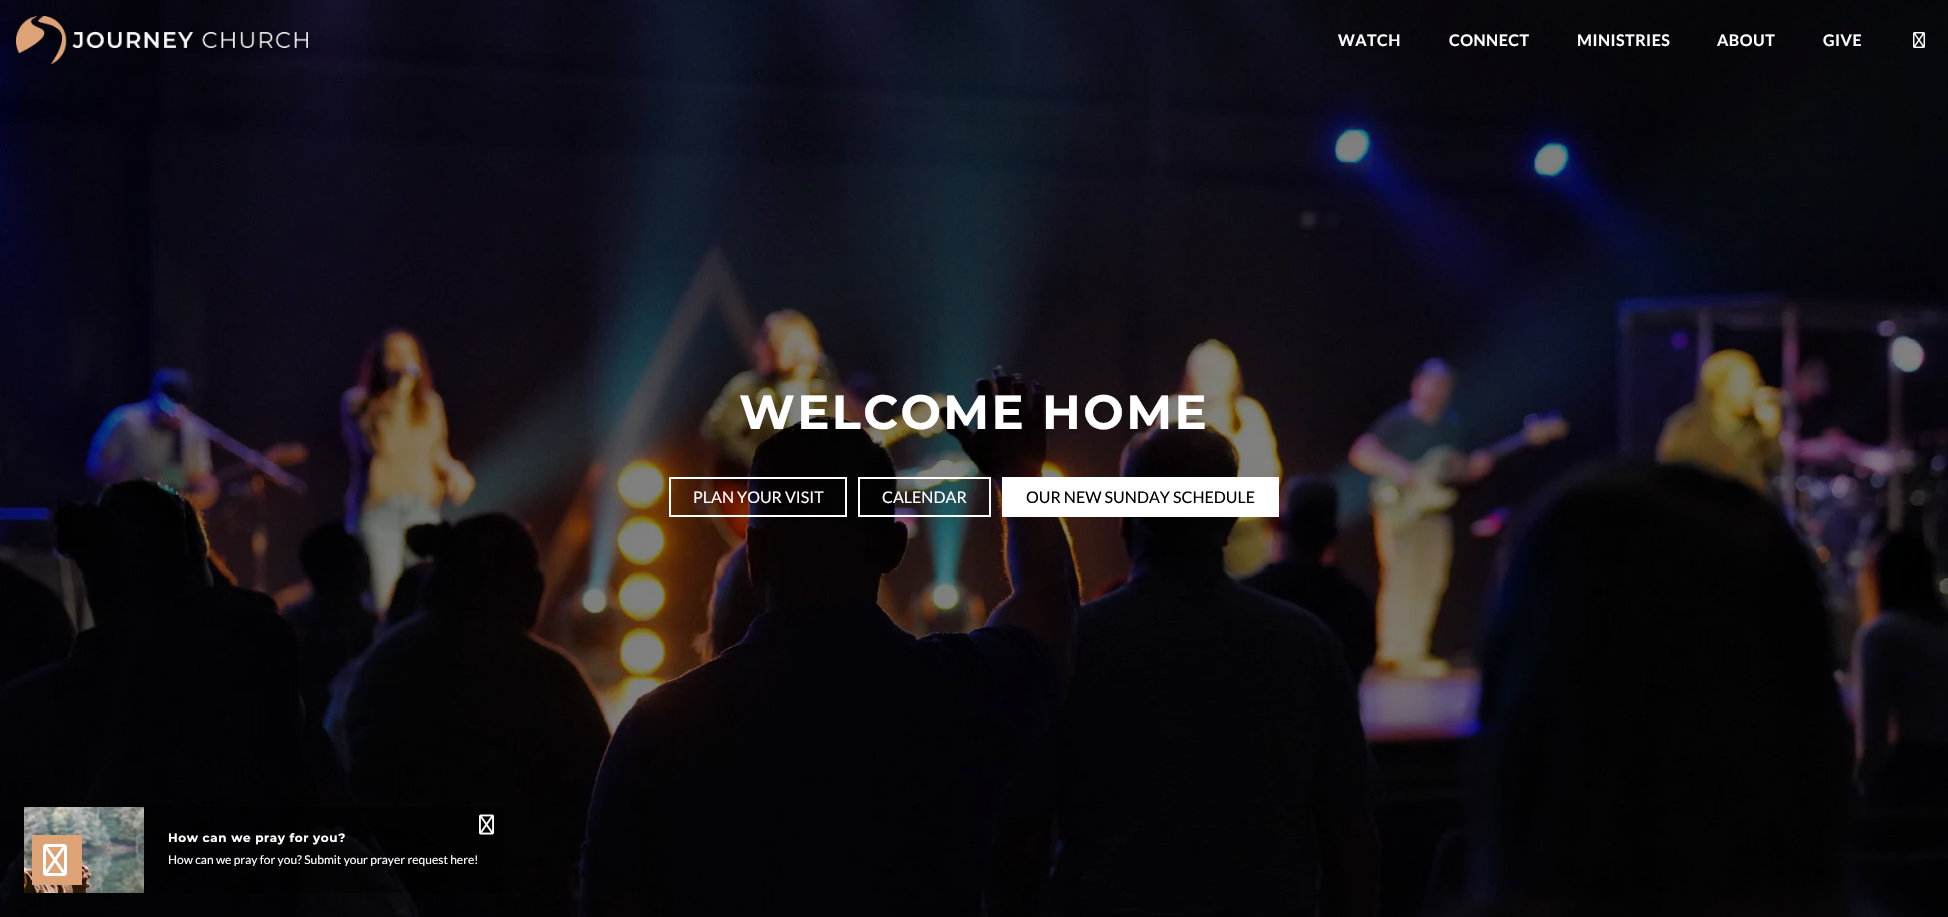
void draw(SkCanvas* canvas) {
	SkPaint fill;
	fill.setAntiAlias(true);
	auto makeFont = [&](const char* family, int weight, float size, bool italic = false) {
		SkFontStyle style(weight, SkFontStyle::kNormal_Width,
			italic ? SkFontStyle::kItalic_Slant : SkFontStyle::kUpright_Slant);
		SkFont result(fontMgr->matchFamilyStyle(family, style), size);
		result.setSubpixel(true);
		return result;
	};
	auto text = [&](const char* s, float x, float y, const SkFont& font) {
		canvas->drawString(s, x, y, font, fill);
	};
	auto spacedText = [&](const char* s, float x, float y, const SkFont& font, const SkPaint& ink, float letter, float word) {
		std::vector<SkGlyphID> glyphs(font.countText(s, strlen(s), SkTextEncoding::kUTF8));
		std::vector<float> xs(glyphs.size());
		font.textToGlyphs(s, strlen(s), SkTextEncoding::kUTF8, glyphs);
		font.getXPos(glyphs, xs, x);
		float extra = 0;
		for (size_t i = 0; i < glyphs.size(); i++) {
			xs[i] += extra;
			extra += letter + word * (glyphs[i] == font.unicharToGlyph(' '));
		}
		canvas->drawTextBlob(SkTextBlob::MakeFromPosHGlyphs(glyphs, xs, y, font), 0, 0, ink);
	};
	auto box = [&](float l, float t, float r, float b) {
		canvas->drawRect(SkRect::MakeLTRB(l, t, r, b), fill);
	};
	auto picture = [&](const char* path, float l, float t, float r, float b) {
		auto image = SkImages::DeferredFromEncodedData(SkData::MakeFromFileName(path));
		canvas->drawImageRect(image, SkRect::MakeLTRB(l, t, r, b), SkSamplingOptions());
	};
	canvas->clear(0xFFFFFFFF);
	picture("image2.png", 0, 0, 1948, 917);
	picture("image0.png", 16, 16, 308, 64);
	picture("image1.png", 1913, 32, 1925, 48);
	fill.setStyle(SkPaint::kStroke_Style);
	fill.setStrokeWidth(2);
	fill.setColor(0xFFFFFFFF);
	canvas->drawRect(SkRect::MakeLTRB(670, 478, 846, 516), fill);
	canvas->drawRect(SkRect::MakeLTRB(859, 478, 990, 516), fill);
	fill.setStyle(SkPaint::kFill_Style);
	box(1002, 477, 1279, 517);
	picture("image5.png", 24, 807, 144, 893);
	fill.setColor(0x40000000);
	fill.setMaskFilter(SkMaskFilter::MakeBlur(kNormal_SkBlurStyle, 5));
	canvas->drawRect(SkRect::MakeLTRB(32, 837, 82, 887), fill);
	fill.setMaskFilter(nullptr);
	fill.setColor(0xFFDDA276);
	box(32, 835, 82, 885);
	picture("image3.png", 43, 844, 67, 876);
	fill.setColor(0x80000000);
	box(145, 807, 503, 893);
	picture("image4.png", 479, 814, 494, 835);
	auto font1 = makeFont("Lato", 700, 16);
	fill.setColor(0xFFFFFFFF);
	spacedText("WATCH", 1338, 46, font1, fill, 0.5f, 0);
	spacedText("CONNECT", 1449, 46, font1, fill, 0.5f, 0);
	spacedText("MINISTRIES", 1577, 46, font1, fill, 0.5f, 0);
	spacedText("ABOUT", 1717, 46, font1, fill, 0.5f, 0);
	spacedText("GIVE", 1823, 46, font1, fill, 0.5f, 0);
	auto font2 = makeFont("Montserrat", 700, 48);
	spacedText("WELCOME HOME", 739, 429, font2, fill, 2.4f, 0);
	auto font3 = makeFont("Lato", 400, 16);
	text("PLAN YOUR VISIT", 693, 503, font3);
	text("CALENDAR", 882, 503, font3);
	fill.setColor(0xFF000000);
	text("OUR NEW SUNDAY SCHEDULE", 1026, 503, font3);
	auto font4 = makeFont("Montserrat", 700, 12);
	fill.setColor(0xFFFFFFFF);
	spacedText("How can we pray for you?", 168, 842, font4, fill, 0.6f, 0);
	auto font5 = makeFont("Lato", 400, 12);
	text("How can we pray for you? Submit your prayer request here!", 168, 864, font5);
}
